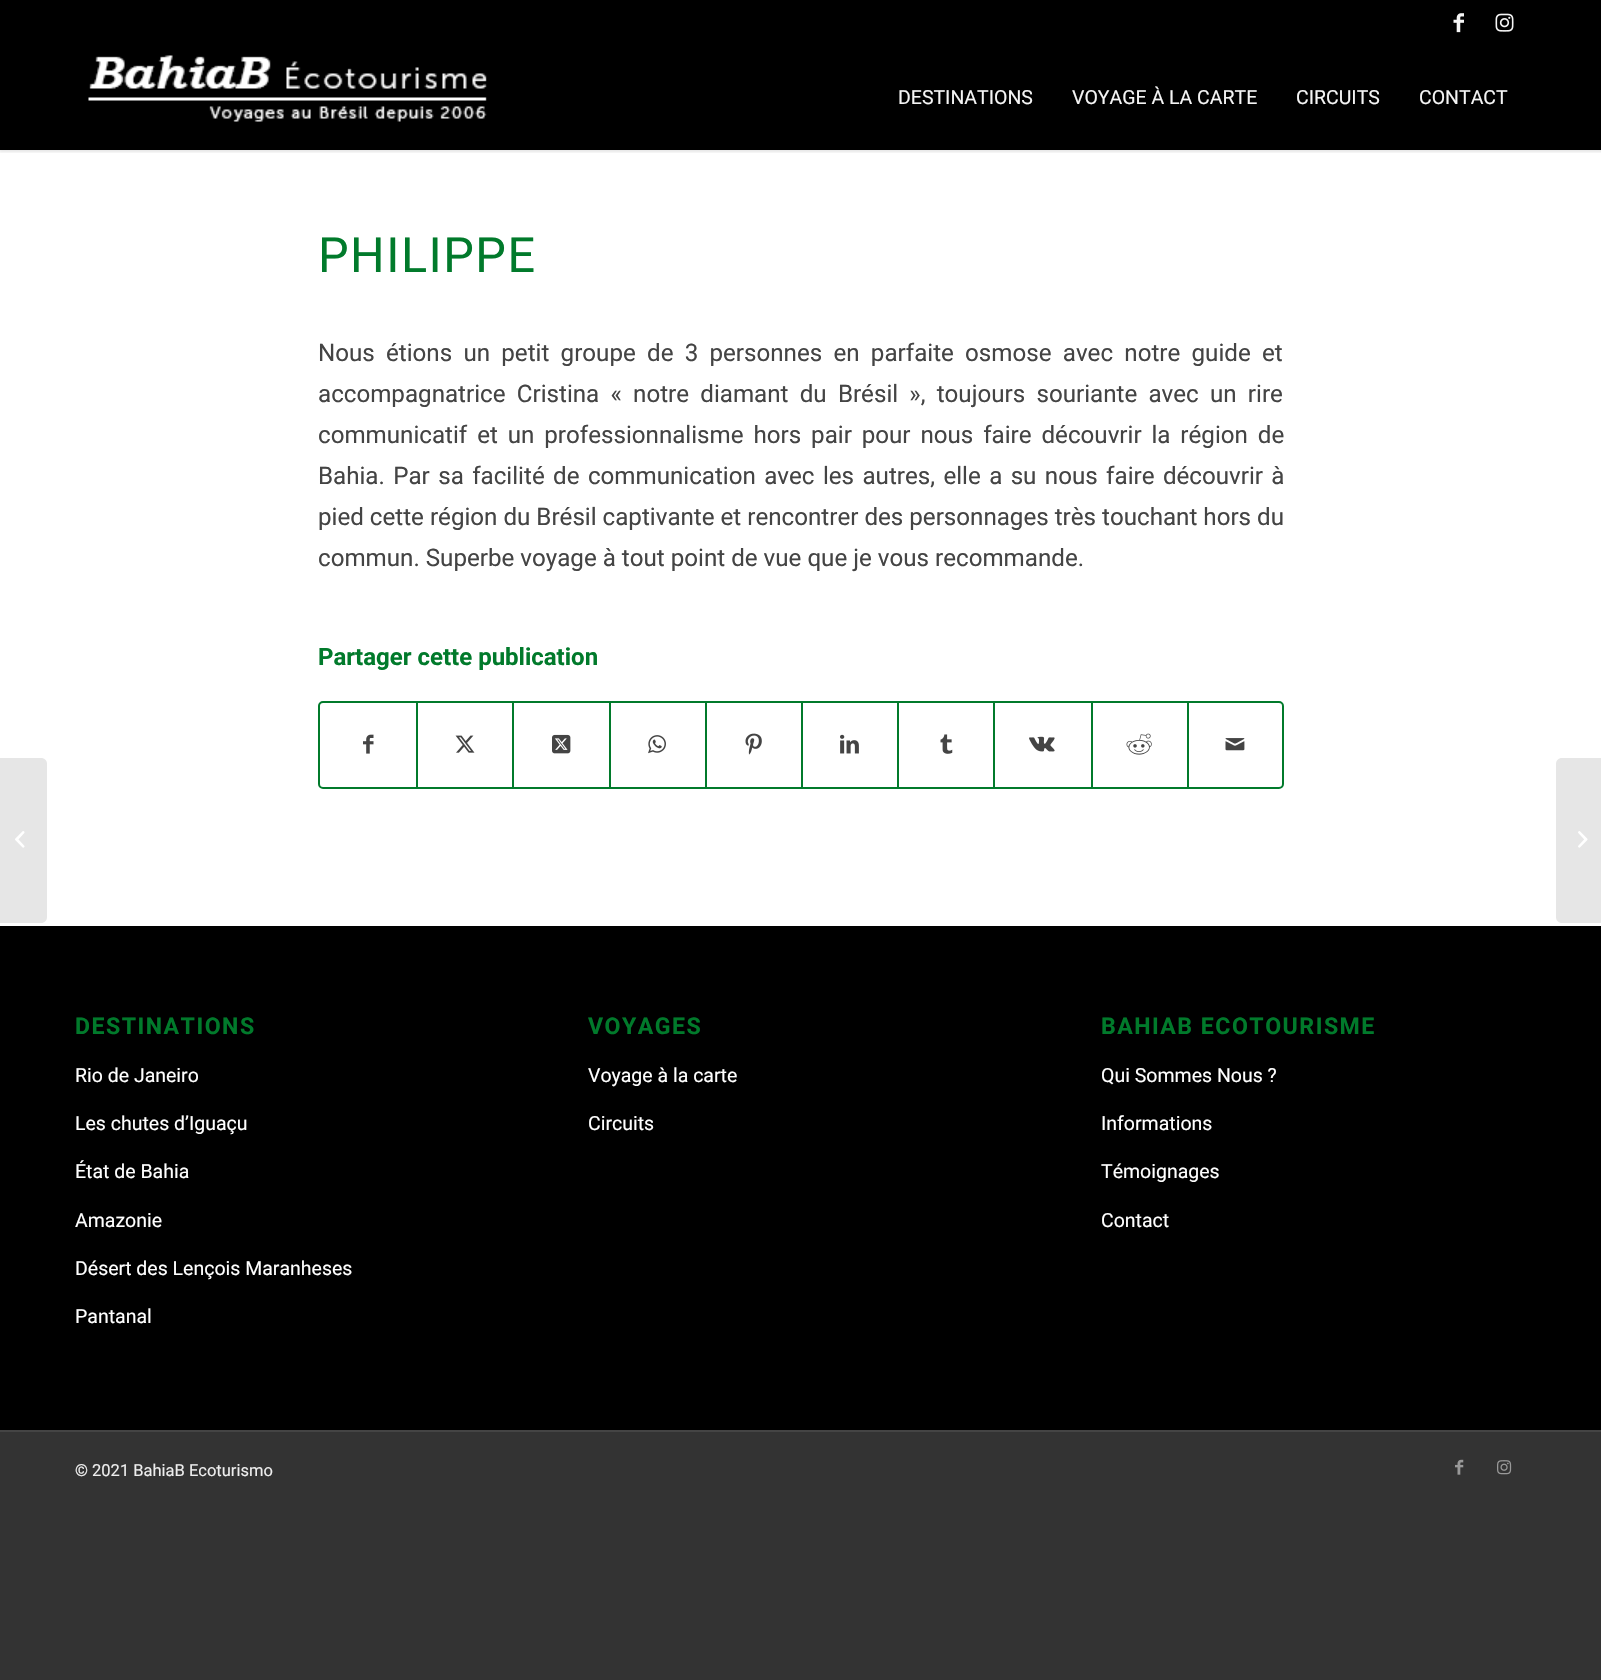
void draw(SkCanvas* canvas) {
	SkPaint fill;
	fill.setAntiAlias(true);
	auto makeFont = [&](const char* family, int weight, float size, bool italic = false) {
		SkFontStyle style(weight, SkFontStyle::kNormal_Width,
			italic ? SkFontStyle::kItalic_Slant : SkFontStyle::kUpright_Slant);
		SkFont result(fontMgr->matchFamilyStyle(family, style), size);
		result.setSubpixel(true);
		return result;
	};
	auto text = [&](const char* s, float x, float y, const SkFont& font) {
		canvas->drawString(s, x, y, font, fill);
	};
	auto spacedText = [&](const char* s, float x, float y, const SkFont& font, const SkPaint& ink, float letter, float word) {
		std::vector<SkGlyphID> glyphs(font.countText(s, strlen(s), SkTextEncoding::kUTF8));
		std::vector<float> xs(glyphs.size());
		font.textToGlyphs(s, strlen(s), SkTextEncoding::kUTF8, glyphs);
		font.getXPos(glyphs, xs, x);
		float extra = 0;
		for (size_t i = 0; i < glyphs.size(); i++) {
			xs[i] += extra;
			extra += letter + word * (glyphs[i] == font.unicharToGlyph(' '));
		}
		canvas->drawTextBlob(SkTextBlob::MakeFromPosHGlyphs(glyphs, xs, y, font), 0, 0, ink);
	};
	auto box = [&](float l, float t, float r, float b) {
		canvas->drawRect(SkRect::MakeLTRB(l, t, r, b), fill);
	};
	auto picture = [&](const char* path, float l, float t, float r, float b) {
		auto image = SkImages::DeferredFromEncodedData(SkData::MakeFromFileName(path));
		canvas->drawImageRect(image, SkRect::MakeLTRB(l, t, r, b), SkSamplingOptions());
	};
	canvas->clear(0xFF333333);
	fill.setColor(0xFF000000);
	box(0, 0, 1601, 1430);
	fill.setColor(0xFFFFFFFF);
	box(0, 150, 1601, 926);
	canvas->save();
	canvas->clipRect(SkRect::MakeLTRB(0, 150, 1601, 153));
	fill.setColor(0x1A000000);
	fill.setMaskFilter(SkMaskFilter::MakeBlur(kNormal_SkBlurStyle, 1.5f));
	canvas->drawRect(SkRect::MakeLTRB(-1, -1, 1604, 152), fill);
	fill.setMaskFilter(nullptr);
	canvas->restore();
	picture("image0.png", 1453, 13, 1464, 33);
	picture("image1.png", 1495, 13, 1514, 32);
	picture("image2.png", 88, 55, 487, 122);
	fill.setColor(0xFFE6E6E6);
	canvas->drawPath(SkPathBuilder().moveTo(0, 758).lineTo(41, 758).cubicTo(44.5f, 758, 47, 760.5f, 47, 764).lineTo(47, 917).cubicTo(47, 920.5f, 44.5f, 923, 41, 923).lineTo(0, 923).close().detach(), fill);
	picture("image3.png", 15, 831, 25, 848);
	fill.setStyle(SkPaint::kStroke_Style);
	fill.setStrokeWidth(2);
	fill.setColor(0xFF017A2B);
	canvas->drawRoundRect(SkRect::MakeLTRB(319, 702, 1283, 788), 4, 4, fill);
	picture("image4.png", 363, 734, 374, 754);
	fill.setStyle(SkPaint::kFill_Style);
	box(416, 702, 418, 788);
	picture("image5.png", 455, 735, 475, 753);
	box(512, 702, 514, 788);
	picture("image6.png", 552, 734, 571, 754);
	box(609, 702, 611, 788);
	picture("image7.png", 648, 735, 666, 754);
	box(705, 702, 707, 788);
	picture("image8.png", 745, 733, 762, 755);
	box(801, 702, 803, 788);
	picture("image9.png", 840, 734, 859, 754);
	box(897, 702, 899, 788);
	picture("image10.png", 940, 734, 953, 754);
	box(993, 702, 995, 788);
	picture("image11.png", 1029, 736, 1055, 752);
	box(1091, 702, 1093, 788);
	picture("image12.png", 1126, 733, 1152, 755);
	box(1187, 702, 1189, 788);
	picture("image13.png", 1225, 738, 1245, 751);
	fill.setColor(0xFF444444);
	box(0, 1430, 1601, 1432);
	picture("image14.png", 1455, 1459, 1464, 1475);
	picture("image15.png", 1497, 1460, 1512, 1475);
	fill.setColor(0xFFE6E6E6);
	canvas->drawPath(SkPathBuilder().moveTo(1562, 758).lineTo(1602, 758).lineTo(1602, 923).lineTo(1562, 923).cubicTo(1558.5f, 923, 1556, 920.5f, 1556, 917).lineTo(1556, 764).cubicTo(1556, 760.5f, 1558.5f, 758, 1562, 758).close().detach(), fill);
	picture("image16.png", 1578, 831, 1588, 848);
	auto font1 = makeFont("Roboto", 400, 19.5f);
	fill.setColor(0xFFF5F5F5);
	text("DESTINATIONS", 898, 104, font1);
	text("VOYAGE À LA CARTE", 1072, 104, font1);
	text("CIRCUITS", 1296, 104, font1);
	text("CONTACT", 1419, 104, font1);
	auto font2 = makeFont("Roboto", 400, 48.5f);
	fill.setColor(0xFF017A2B);
	spacedText("PHILIPPE", 318, 272, font2, fill, 1.5f, 0);
	auto font3 = makeFont("Roboto", 400, 24.15f);
	fill.setColor(0xFF444444);
	spacedText("Nous étions un petit groupe de 3 personnes en parfaite osmose avec notre guide et", 318, 361, font3, fill, 0, 5.25f);
	spacedText("accompagnatrice Cristina « notre diamant du Brésil », toujours souriante avec un rire", 318, 402, font3, fill, 0, 5.25f);
	spacedText("communicatif et un professionnalisme hors pair pour nous faire découvrir la région de", 318, 443, font3, fill, 0, 3.9f);
	spacedText("Bahia. Par sa facilité de communication avec les autres, elle a su nous faire découvrir à", 318, 484, font3, fill, 0, 2.4f);
	text("pied cette région du Brésil captivante et rencontrer des personnages très touchant hors du", 318, 525, font3);
	text("commun. Superbe voyage à tout point de vue que je vous recommande.", 318, 566, font3);
	auto font4 = makeFont("Roboto", 700, 24);
	fill.setColor(0xFF017A2B);
	text("Partager cette publication", 318, 665, font4);
	auto font5 = makeFont("Roboto", 700, 23.1f);
	spacedText("DESTINATIONS", 75, 1034, font5, fill, 1.5f, 0);
	fill.setColor(0xFFFFFFFF);
	text("Rio de Janeiro", 75, 1082, font1);
	text("Les chutes d’Iguaçu", 75, 1130, font1);
	text("État de Bahia", 75, 1178, font1);
	text("Amazonie", 75, 1227, font1);
	text("Désert des Lençois Maranheses", 75, 1275, font1);
	text("Pantanal", 75, 1323, font1);
	fill.setColor(0xFF017A2B);
	spacedText("VOYAGES", 588, 1034, font5, fill, 1.5f, 0);
	fill.setColor(0xFFFFFFFF);
	text("Voyage à la carte", 588, 1082, font1);
	text("Circuits", 588, 1130, font1);
	fill.setColor(0xFF017A2B);
	spacedText("BAHIAB ECOTOURISME", 1101, 1034, font5, fill, 1.5f, 0);
	fill.setColor(0xFFFFFFFF);
	text("Qui Sommes Nous ?", 1101, 1082, font1);
	text("Informations", 1101, 1130, font1);
	text("Témoignages", 1101, 1178, font1);
	text("Contact", 1101, 1227, font1);
	auto font6 = makeFont("Roboto", 400, 16.5f);
	fill.setColor(0xFFEEEEEE);
	text("© 2021 BahiaB Ecoturismo", 75, 1476, font6);
}
